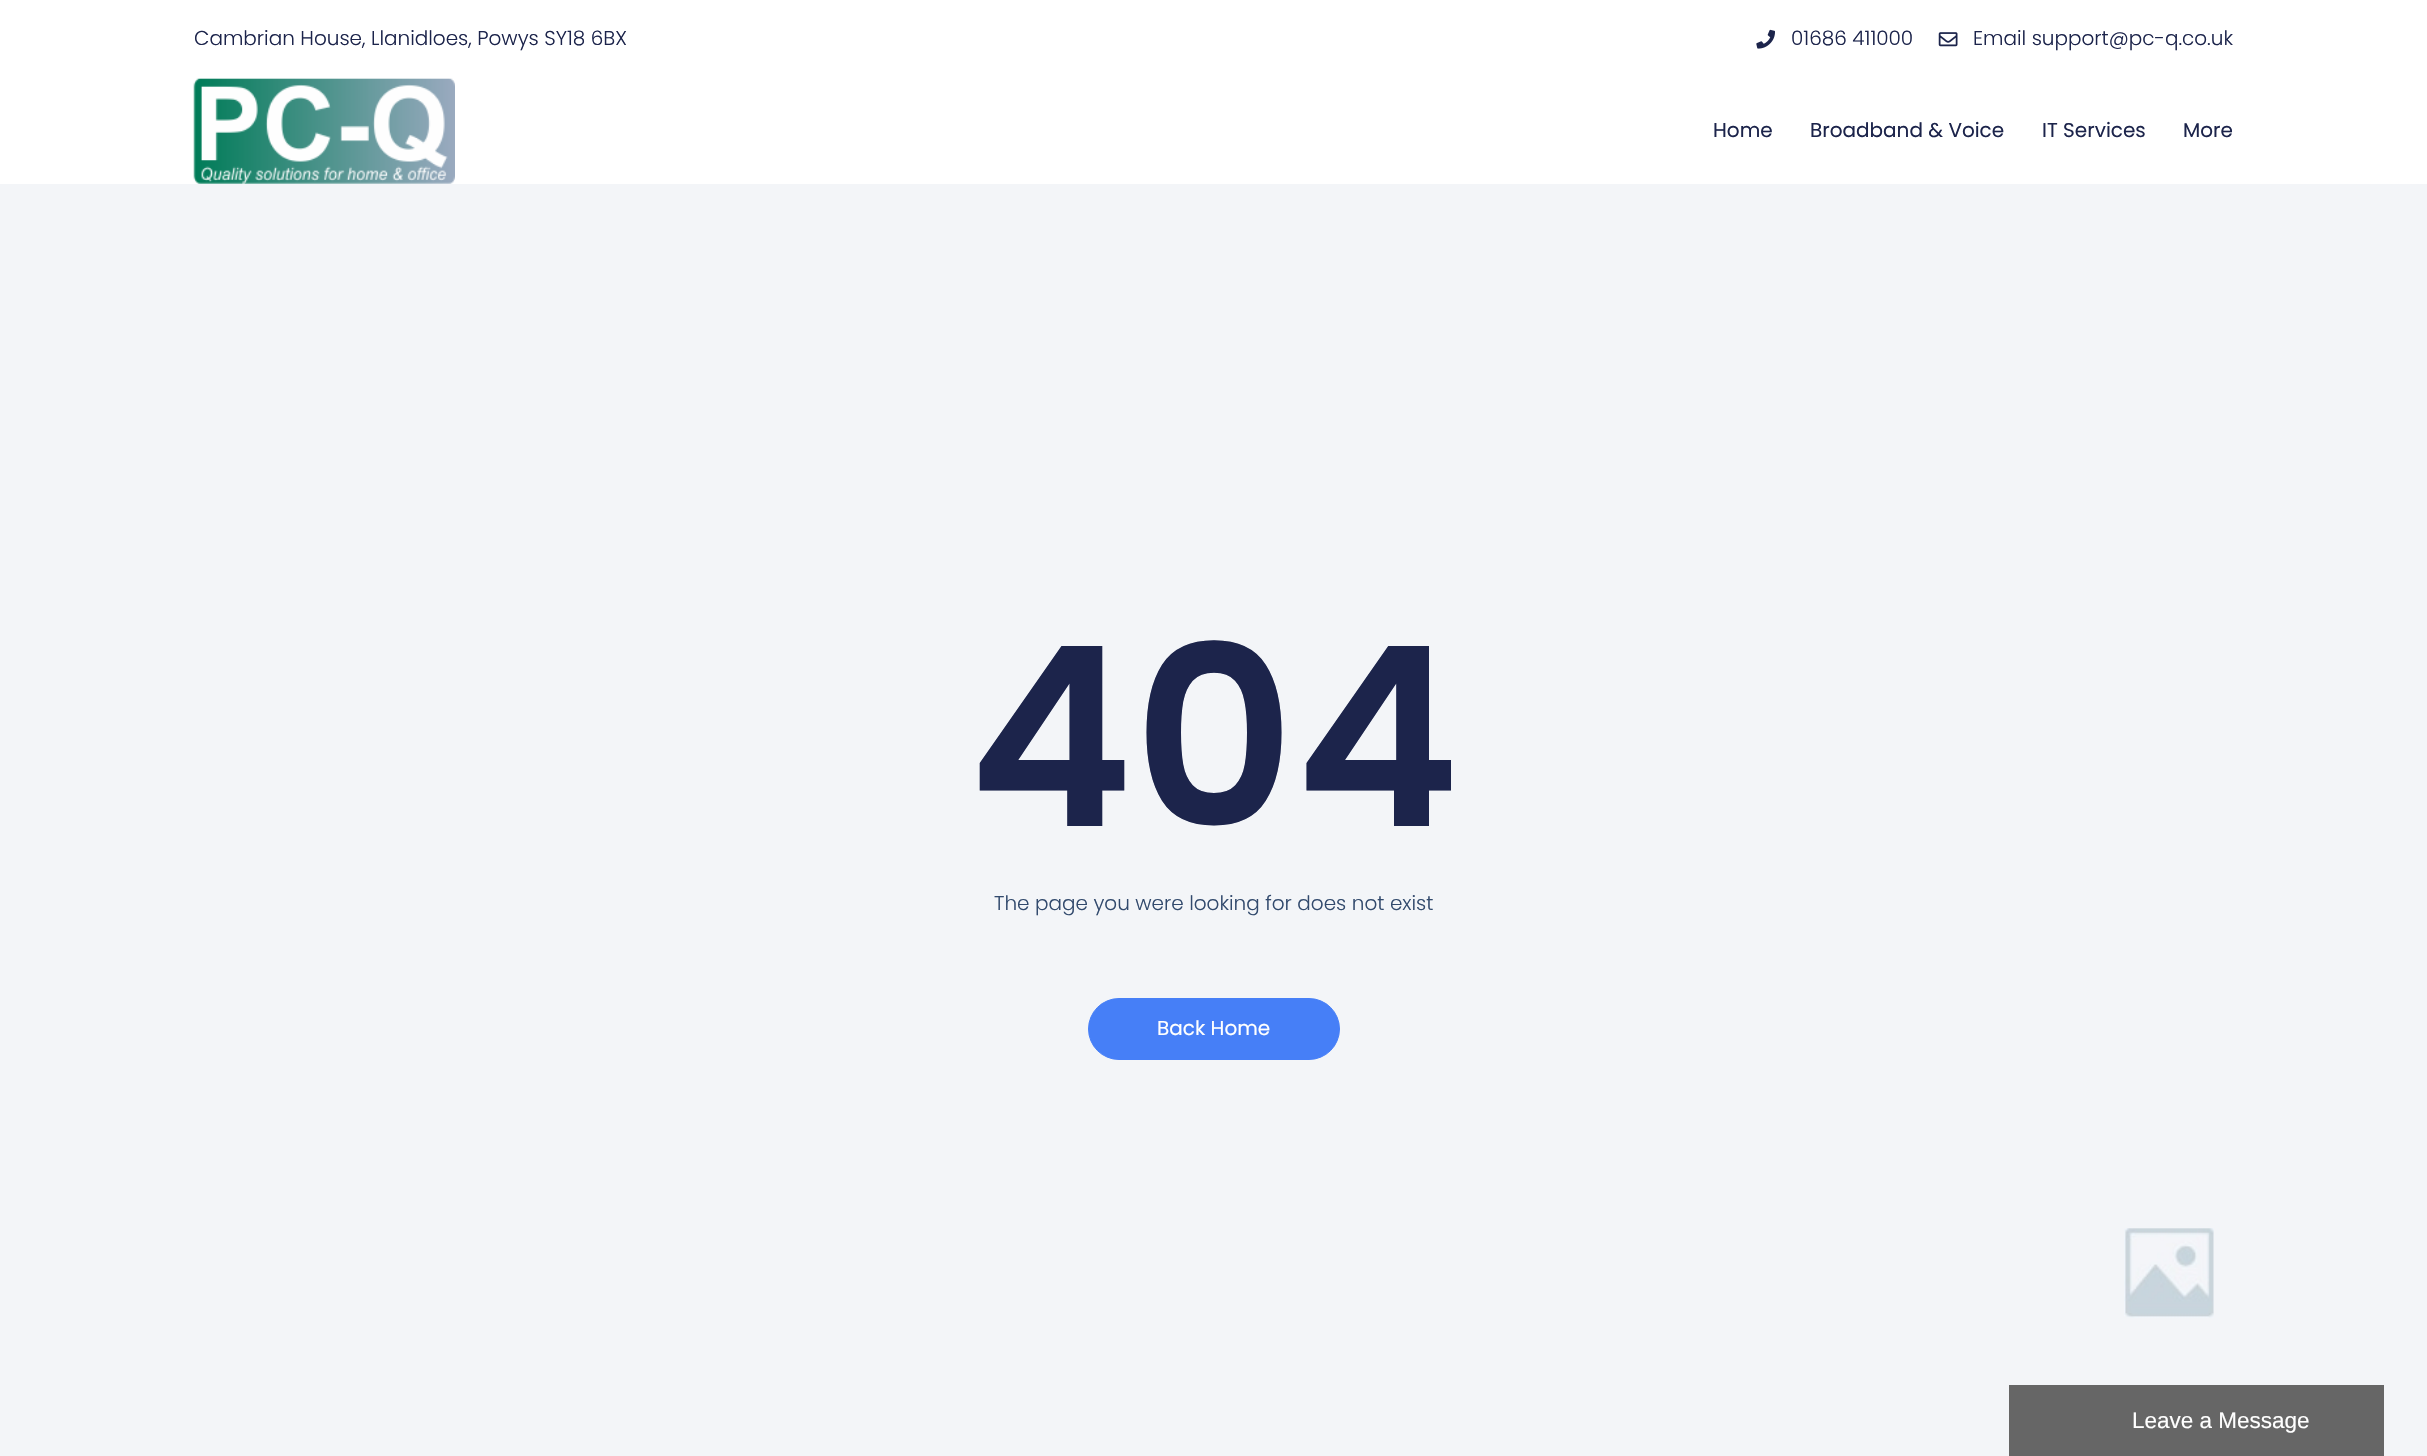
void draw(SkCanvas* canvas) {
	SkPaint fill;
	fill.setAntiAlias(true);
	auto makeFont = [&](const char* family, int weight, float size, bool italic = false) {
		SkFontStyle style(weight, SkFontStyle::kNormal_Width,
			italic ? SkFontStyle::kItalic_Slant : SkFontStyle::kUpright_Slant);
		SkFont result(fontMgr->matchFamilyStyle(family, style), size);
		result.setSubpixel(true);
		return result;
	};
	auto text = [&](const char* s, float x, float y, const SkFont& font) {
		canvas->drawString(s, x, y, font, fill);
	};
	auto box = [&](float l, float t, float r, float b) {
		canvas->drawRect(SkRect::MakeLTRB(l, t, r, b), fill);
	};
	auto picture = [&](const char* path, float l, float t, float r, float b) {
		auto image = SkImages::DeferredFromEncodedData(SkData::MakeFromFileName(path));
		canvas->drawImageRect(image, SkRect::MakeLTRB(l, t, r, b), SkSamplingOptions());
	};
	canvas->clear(0xFFFFFFFF);
	picture("image0.png", 1756, 29, 1775, 49);
	picture("image1.png", 1938, 32, 1958, 47);
	picture("image2.png", 193, 78, 455, 184);
	fill.setColor(0xFFF3F5F8);
	box(0, 184, 2427, 1456);
	picture("image3.png", 2124, 1228, 2214, 1318);
	fill.setColor(0xFF467FF7);
	canvas->drawRoundRect(SkRect::MakeLTRB(1088.5f, 998.5f, 1339.5f, 1059.5f), 30.5f, 30.5f, fill);
	fill.setStyle(SkPaint::kStroke_Style);
	fill.setStrokeWidth(1);
	canvas->drawRoundRect(SkRect::MakeLTRB(1088.5f, 998.5f, 1339.5f, 1059.5f), 30.5f, 30.5f, fill);
	fill.setStyle(SkPaint::kFill_Style);
	fill.setColor(0xFF666666);
	box(2009, 1385, 2384, 1456);
	auto font1 = makeFont("Poppins", 300, 20);
	fill.setColor(0xFF1C244B);
	text("Cambrian House, Llanidloes, Powys SY18 6BX", 194, 45, font1);
	text("01686 411000", 1791, 45, font1);
	text("Email support@pc-q.co.uk", 1973, 45, font1);
	auto font2 = makeFont("Poppins", 400, 20);
	text("Home", 1713, 137, font2);
	text("Broadband & Voice", 1810, 137, font2);
	text("IT Services", 2042, 137, font2);
	text("More", 2183, 137, font2);
	auto font3 = makeFont("Poppins", 600, 250);
	text("404", 968, 826, font3);
	fill.setColor(0xFF324A6D);
	text("The page you were looking for does not exist", 994, 910, font1);
	fill.setColor(0xFFFFFFFF);
	text("Back Home", 1157, 1035, font2);
	auto font4 = makeFont("Liberation Sans", 400, 22.5f);
	text("Leave a Message", 2132, 1428, font4);
}
